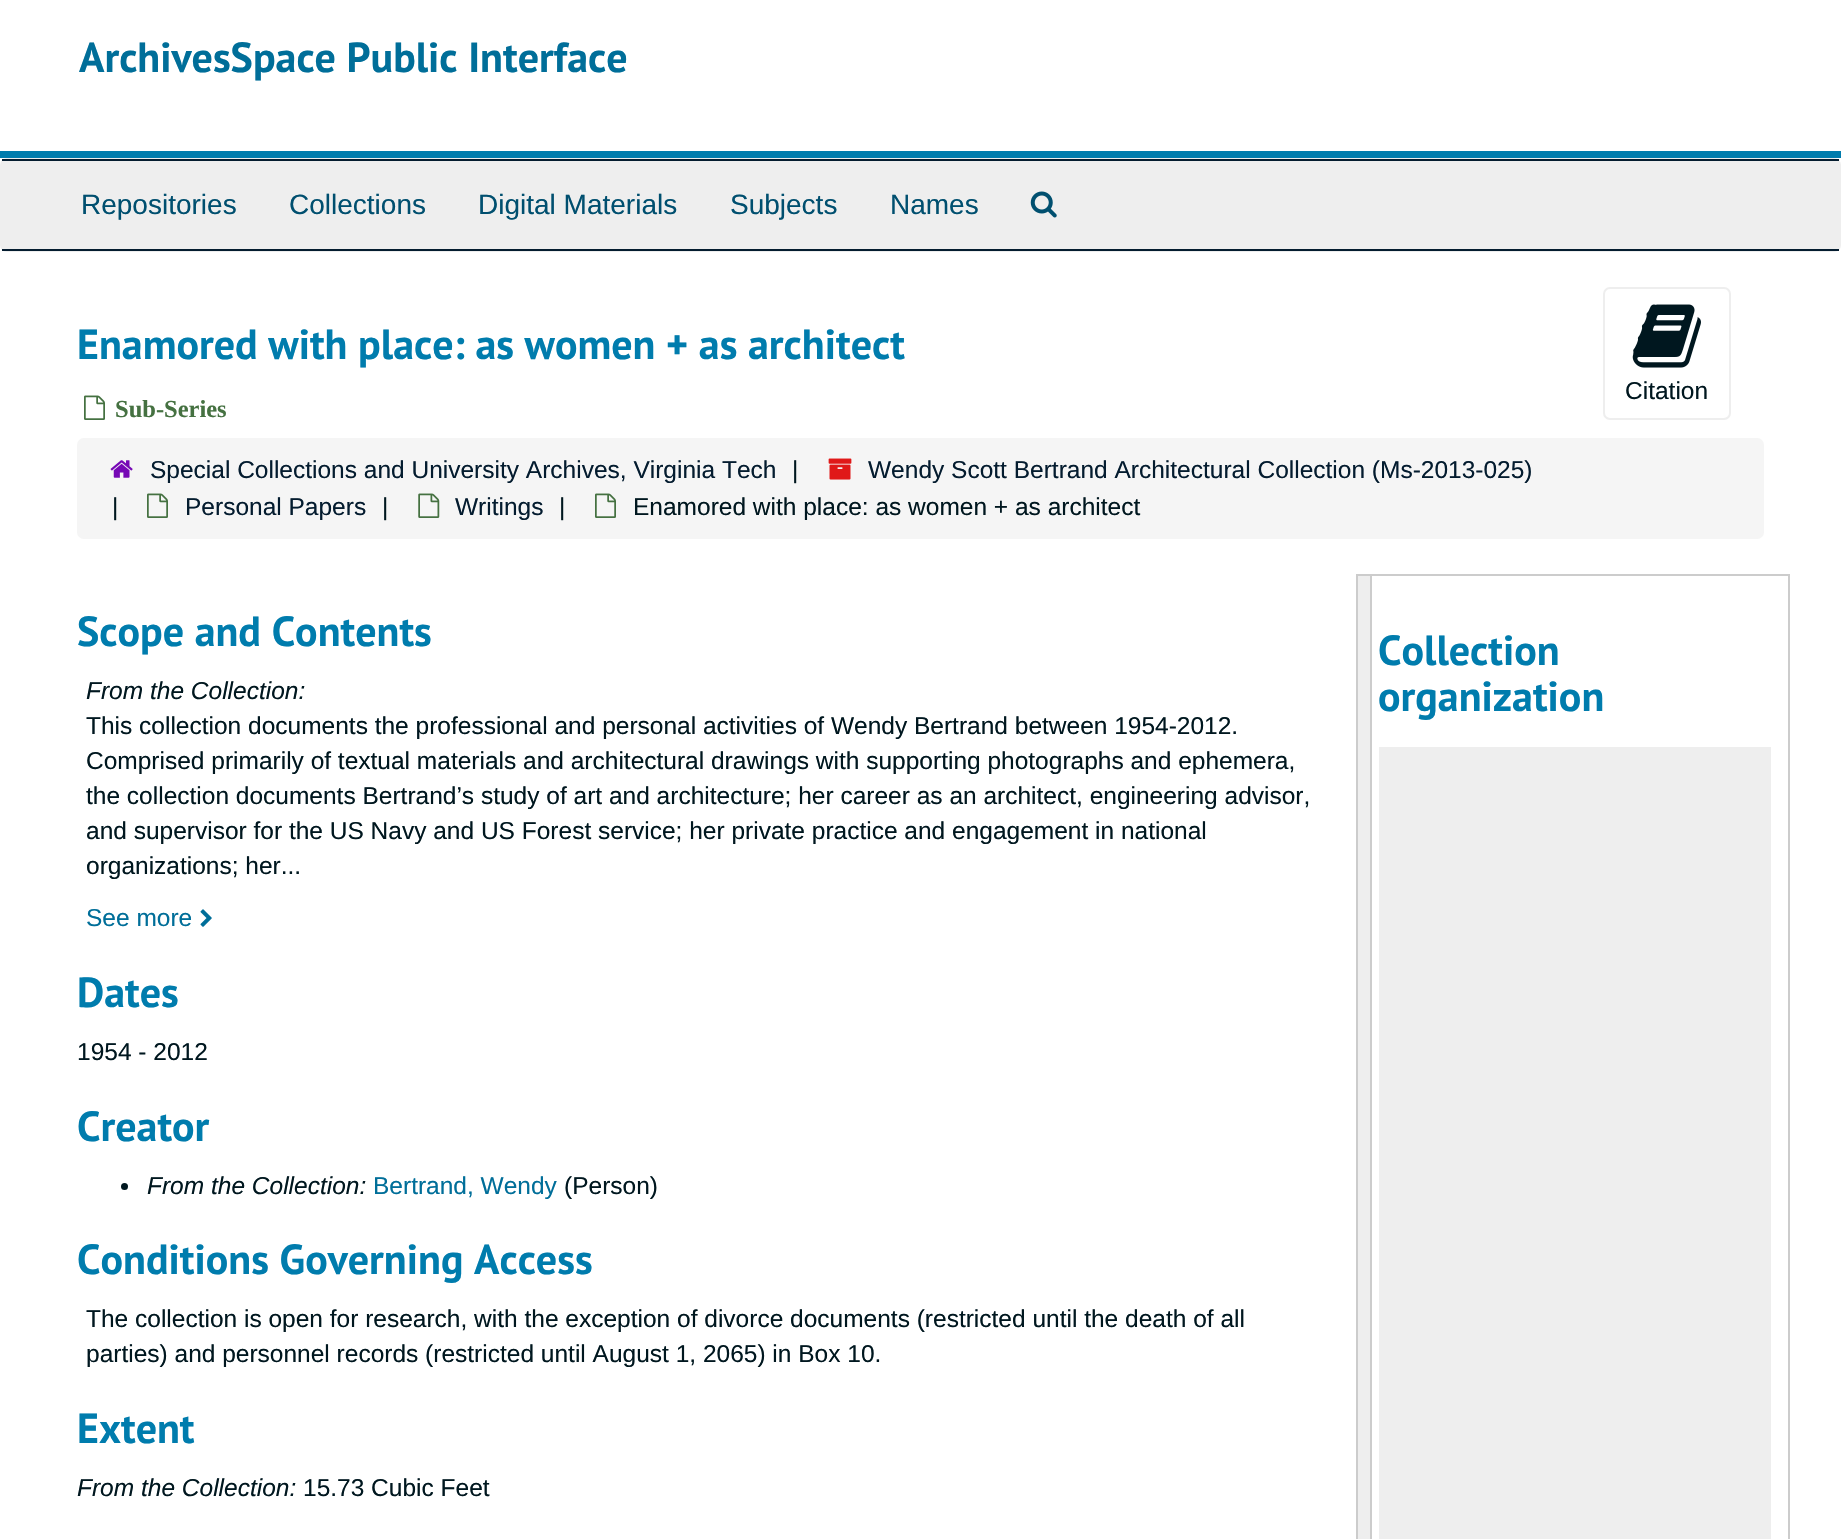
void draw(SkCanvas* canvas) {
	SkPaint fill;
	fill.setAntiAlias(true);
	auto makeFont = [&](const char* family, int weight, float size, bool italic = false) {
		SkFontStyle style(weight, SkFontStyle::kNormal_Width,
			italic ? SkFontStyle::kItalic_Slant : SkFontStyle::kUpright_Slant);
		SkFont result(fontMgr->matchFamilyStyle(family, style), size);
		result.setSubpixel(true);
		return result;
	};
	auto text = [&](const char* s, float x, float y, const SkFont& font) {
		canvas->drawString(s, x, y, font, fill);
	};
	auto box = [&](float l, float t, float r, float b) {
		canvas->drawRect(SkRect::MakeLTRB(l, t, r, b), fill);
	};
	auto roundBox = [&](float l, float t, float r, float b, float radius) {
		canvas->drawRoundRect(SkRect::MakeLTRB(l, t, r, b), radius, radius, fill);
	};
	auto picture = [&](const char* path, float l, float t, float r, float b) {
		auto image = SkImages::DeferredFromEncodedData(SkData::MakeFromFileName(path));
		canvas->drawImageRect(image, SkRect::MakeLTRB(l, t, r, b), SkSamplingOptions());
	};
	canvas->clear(0xFFFFFFFF);
	fill.setColor(0xFF007CAD);
	box(0, 151, 1841, 158);
	fill.setStyle(SkPaint::kStroke_Style);
	fill.setStrokeWidth(2);
	fill.setColor(0xFFEEEEEE);
	canvas->drawRoundRect(SkRect::MakeLTRB(1, 159, 1840, 251), 6, 6, fill);
	fill.setStyle(SkPaint::kFill_Style);
	box(2, 161, 1839, 249);
	fill.setColor(0xFF041C2F);
	box(2, 159, 1839, 161);
	box(2, 249, 1839, 251);
	picture("image0.png", 1030, 191, 1057, 218);
	picture("image1.png", 84, 395, 105, 420);
	fill.setStyle(SkPaint::kStroke_Style);
	fill.setColor(0xFFEEEEEE);
	canvas->drawRoundRect(SkRect::MakeLTRB(1604, 288, 1730, 419), 6, 6, fill);
	picture("image2.png", 1632, 304, 1701, 368);
	fill.setStyle(SkPaint::kFill_Style);
	fill.setColor(0xFFF5F5F5);
	roundBox(77, 438, 1764, 539, 7);
	picture("image3.png", 110, 460, 133, 478);
	picture("image4.png", 828, 458, 852, 480);
	picture("image5.png", 147, 493, 168, 518);
	picture("image6.png", 418, 493, 440, 518);
	picture("image5.png", 595, 493, 616, 518);
	picture("image7.png", 200, 909, 212, 927);
	fill.setColor(0xFF00171F);
	canvas->drawCircle(124.5f, 1186.5f, 3.5f, fill);
	fill.setStyle(SkPaint::kStroke_Style);
	fill.setColor(0xFFCCCCCC);
	canvas->drawRect(SkRect::MakeLTRB(1357, 575, 1789, 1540), fill);
	fill.setStyle(SkPaint::kFill_Style);
	fill.setColor(0xFFEEEEEE);
	box(1358, 576, 1370, 1539);
	fill.setColor(0xFFCCCCCC);
	box(1370, 576, 1372, 1539);
	fill.setColor(0xFFEEEEEE);
	box(1379, 747, 1771, 1539);
	auto font1 = makeFont("PT Sans", 700, 42);
	fill.setColor(0xFF006E99);
	text("ArchivesSpace Public Interface", 79, 72, font1);
	auto font2 = makeFont("Liberation Sans", 400, 28);
	fill.setColor(0xFF004F6F);
	text("Repositories", 81, 214, font2);
	text("Collections", 289, 214, font2);
	text("Digital Materials", 478, 214, font2);
	text("Subjects", 730, 214, font2);
	text("Names", 890, 214, font2);
	fill.setColor(0xFF007CAD);
	text("Enamored with place: as women + as architect", 77, 359, font1);
	auto font3 = makeFont("Liberation Serif", 700, 24.5f);
	fill.setColor(0xFF457141);
	text("Sub-Series", 115, 417, font3);
	auto font4 = makeFont("Liberation Sans", 400, 24.5f);
	fill.setColor(0xFF00171F);
	text("Citation", 1625, 399, font4);
	fill.setColor(0xFF041C2F);
	text("Special Collections and University Archives, Virginia Tech", 150, 478, font4);
	fill.setColor(0xFF00171F);
	text("|", 792, 478, font4);
	fill.setColor(0xFF041C2F);
	text("Wendy Scott Bertrand Architectural Collection (Ms-2013-025)", 868, 478, font4);
	fill.setColor(0xFF00171F);
	text("|", 112, 515, font4);
	fill.setColor(0xFF041C2F);
	text("Personal Papers", 185, 515, font4);
	fill.setColor(0xFF00171F);
	text("|", 382, 515, font4);
	fill.setColor(0xFF041C2F);
	text("Writings", 455, 515, font4);
	fill.setColor(0xFF00171F);
	text("|", 559, 515, font4);
	text("Enamored with place: as women + as architect", 633, 515, font4);
	fill.setColor(0xFF007CAD);
	text("Scope and Contents", 77, 646, font1);
	auto font5 = makeFont("Liberation Sans", 400, 24.5f, true);
	fill.setColor(0xFF00171F);
	text("From the Collection:", 86, 699, font5);
	text("This collection documents the professional and personal activities of Wendy Bertrand between 1954-2012.", 86, 734, font4);
	text("Comprised primarily of textual materials and architectural drawings with supporting photographs and ephemera,", 86, 769, font4);
	text("the collection documents Bertrand’s study of art and architecture; her career as an architect, engineering advisor,", 86, 804, font4);
	text("and supervisor for the US Navy and US Forest service; her private practice and engagement in national", 86, 839, font4);
	text("organizations; her...", 86, 874, font4);
	fill.setColor(0xFF006E99);
	text("See more", 86, 926, font4);
	fill.setColor(0xFF007CAD);
	text("Dates", 77, 1007, font1);
	fill.setColor(0xFF00171F);
	text("1954 - 2012", 77, 1060, font4);
	fill.setColor(0xFF007CAD);
	text("Creator", 77, 1141, font1);
	fill.setColor(0xFF00171F);
	text("From the Collection:", 147, 1194, font5);
	fill.setColor(0xFF006E99);
	text("Bertrand, Wendy", 373, 1194, font4);
	fill.setColor(0xFF00171F);
	text("(Person)", 564, 1194, font4);
	fill.setColor(0xFF007CAD);
	text("Conditions Governing Access", 77, 1274, font1);
	fill.setColor(0xFF00171F);
	text("The collection is open for research, with the exception of divorce documents (restricted until the death of all", 86, 1327, font4);
	text("parties) and personnel records (restricted until August 1, 2065) in Box 10.", 86, 1362, font4);
	fill.setColor(0xFF007CAD);
	text("Extent", 77, 1443, font1);
	fill.setColor(0xFF00171F);
	text("From the Collection:", 77, 1496, font5);
	text("15.73 Cubic Feet", 303, 1496, font4);
	fill.setColor(0xFF007CAD);
	text("Collection", 1378, 665, font1);
	text("organization", 1378, 711, font1);
}
